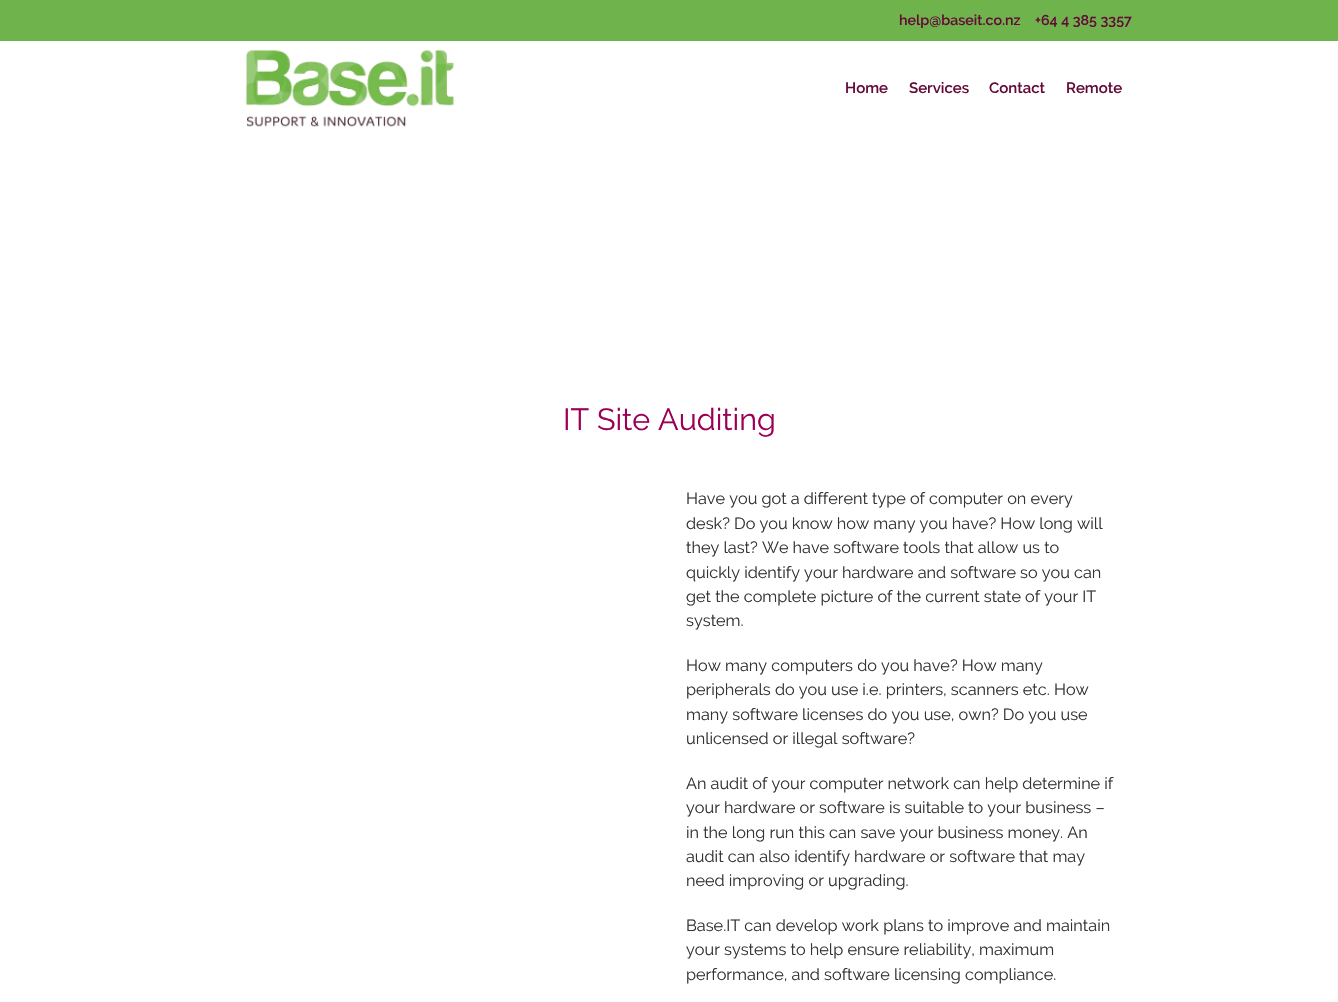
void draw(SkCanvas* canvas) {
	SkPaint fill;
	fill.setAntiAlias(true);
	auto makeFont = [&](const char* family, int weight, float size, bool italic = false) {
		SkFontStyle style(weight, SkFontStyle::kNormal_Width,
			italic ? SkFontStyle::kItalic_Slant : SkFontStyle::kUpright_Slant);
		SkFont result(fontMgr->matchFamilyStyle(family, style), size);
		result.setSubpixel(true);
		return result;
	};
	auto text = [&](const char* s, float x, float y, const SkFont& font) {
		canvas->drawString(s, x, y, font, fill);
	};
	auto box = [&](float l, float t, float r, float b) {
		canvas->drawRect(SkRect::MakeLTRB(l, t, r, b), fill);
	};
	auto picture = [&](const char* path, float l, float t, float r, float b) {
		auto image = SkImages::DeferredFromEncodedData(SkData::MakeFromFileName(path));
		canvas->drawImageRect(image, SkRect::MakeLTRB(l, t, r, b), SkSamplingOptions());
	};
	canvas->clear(0xFFFFFFFF);
	fill.setColor(0xFF6EB34C);
	box(0, 0, 1338, 41);
	picture("image0.png", 245, 49, 454, 127);
	auto font1 = makeFont("Raleway", 600, 14.25f);
	fill.setColor(0xFF640B37);
	text("help@baseit.co.nz", 899, 25, font1);
	text("+64 4 385 3357", 1035, 25, font1);
	auto font2 = makeFont("Raleway", 600, 15);
	text("Home", 845, 93, font2);
	text("Services", 909, 93, font2);
	text("Contact", 989, 93, font2);
	text("Remote", 1066, 93, font2);
	auto font3 = makeFont("Raleway", 400, 30.5f);
	fill.setColor(0xFF9C0055);
	text("IT Site Auditing", 563, 430, font3);
	auto font4 = makeFont("Raleway", 400, 16.25f);
	fill.setColor(0xFF333333);
	text("Have you got a different type of computer on every", 686, 504, font4);
	text("desk? Do you know how many you have? How long will", 686, 529, font4);
	text("they last? We have software tools that allow us to", 686, 553, font4);
	text("quickly identify your hardware and software so you can", 686, 578, font4);
	text("get the complete picture of the current state of your IT", 686, 602, font4);
	text("system.", 686, 626, font4);
	text("How many computers do you have? How many", 686, 671, font4);
	text("peripherals do you use i.e. printers, scanners etc. How", 686, 695, font4);
	text("many software licenses do you use, own? Do you use", 686, 720, font4);
	text("unlicensed or illegal software?", 686, 744, font4);
	text("An audit of your computer network can help determine if", 686, 789, font4);
	text("your hardware or software is suitable to your business –", 686, 813, font4);
	text("in the long run this can save your business money. An", 686, 838, font4);
	text("audit can also identify hardware or software that may", 686, 862, font4);
	text("need improving or upgrading.", 686, 886, font4);
	text("Base.IT can develop work plans to improve and maintain", 686, 931, font4);
	text("your systems to help ensure reliability, maximum", 686, 955, font4);
	text("performance, and software licensing compliance.", 686, 980, font4);
}
